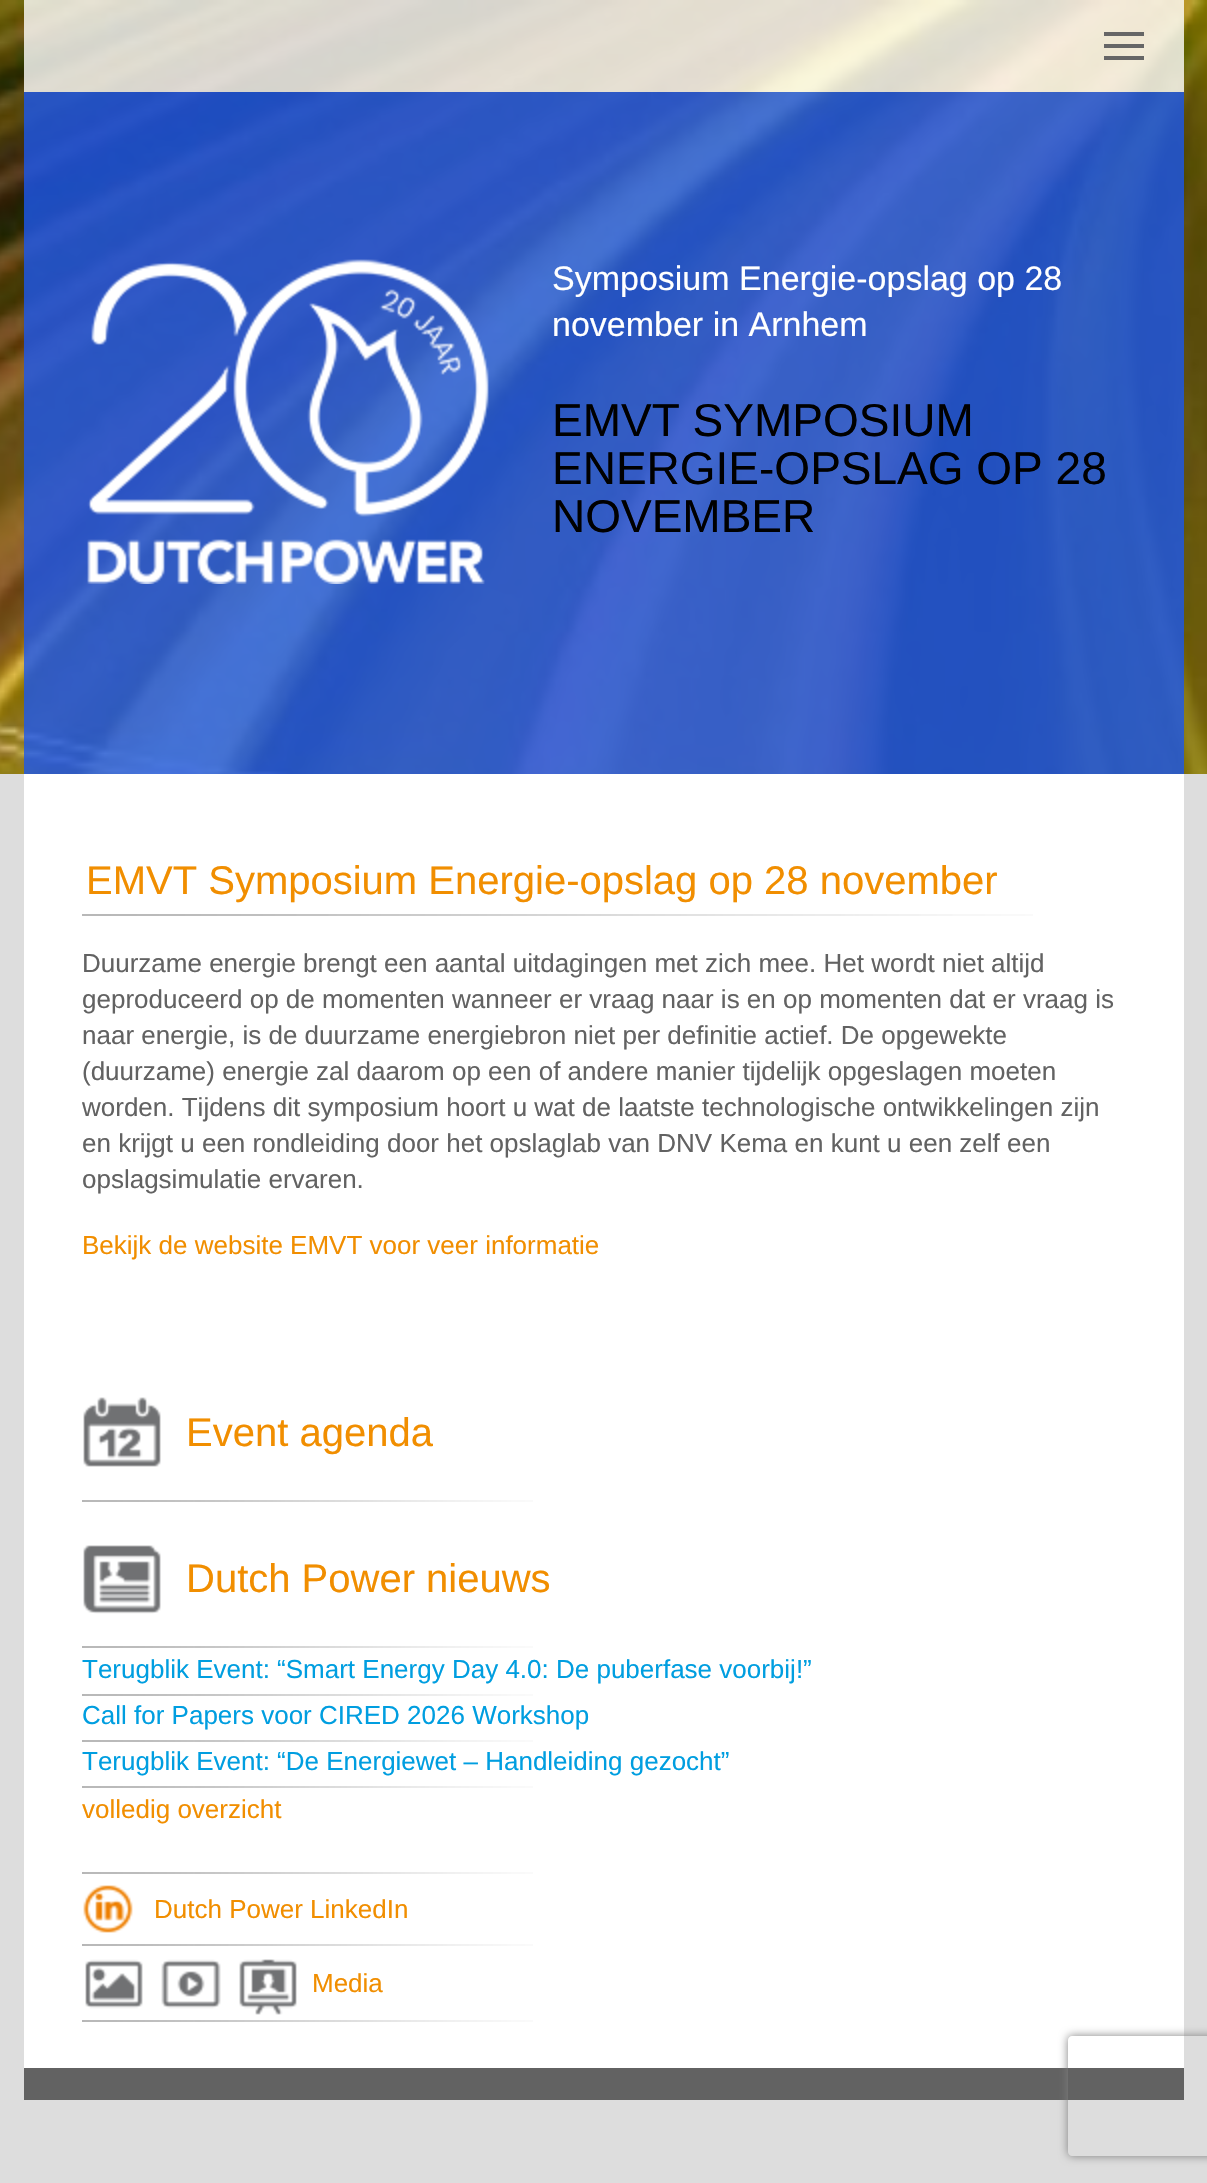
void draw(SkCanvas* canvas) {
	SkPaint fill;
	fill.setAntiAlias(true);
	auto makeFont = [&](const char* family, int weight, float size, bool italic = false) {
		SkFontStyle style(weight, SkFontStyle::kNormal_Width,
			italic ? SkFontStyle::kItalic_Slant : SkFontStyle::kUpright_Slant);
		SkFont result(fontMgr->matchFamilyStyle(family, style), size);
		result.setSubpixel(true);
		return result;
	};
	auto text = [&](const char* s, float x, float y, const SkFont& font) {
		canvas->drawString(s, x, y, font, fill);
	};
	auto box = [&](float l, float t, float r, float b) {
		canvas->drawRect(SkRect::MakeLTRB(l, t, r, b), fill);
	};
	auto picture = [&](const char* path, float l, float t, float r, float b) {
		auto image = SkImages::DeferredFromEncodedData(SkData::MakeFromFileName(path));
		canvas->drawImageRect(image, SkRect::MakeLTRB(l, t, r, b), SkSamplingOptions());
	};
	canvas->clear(0xFFDDDDDD);
	picture("image0.png", 0, 0, 1207, 774);
	fill.setColor(0xCCFFFFFF);
	box(24, 0, 1184, 92);
	fill.setColor(0xFF666666);
	box(1104, 32, 1144, 36);
	box(1104, 44, 1144, 48);
	box(1104, 56, 1144, 60);
	fill.setColor(0xCC1A56ED);
	box(24, 92, 1184, 774);
	picture("image1.png", 87, 259, 489, 584);
	fill.setColor(0xFFFFFFFF);
	box(24, 774, 1184, 2068);
	picture("image2.png", 82, 914, 1033, 916);
	picture("image3.png", 83, 1397, 161, 1467);
	picture("image4.png", 82, 1500, 533, 1502);
	picture("image5.png", 83, 1545, 161, 1614);
	picture("image4.png", 82, 1646, 533, 1648);
	picture("image4.png", 82, 1694, 533, 1696);
	picture("image4.png", 82, 1740, 533, 1742);
	picture("image4.png", 82, 1786, 533, 1788);
	picture("image4.png", 82, 1872, 533, 1874);
	picture("image6.png", 83, 1885, 133, 1933);
	picture("image4.png", 82, 1944, 533, 1946);
	picture("image7.png", 85, 1959, 297, 2015);
	picture("image4.png", 82, 2020, 533, 2022);
	fill.setColor(0xFF626262);
	box(24, 2068, 1184, 2100);
	canvas->save();
	canvas->clipPath(SkPathBuilder(SkPathFillType::kEvenOdd).moveTo(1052, 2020).lineTo(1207, 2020).lineTo(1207, 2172).lineTo(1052, 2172).close().moveTo(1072, 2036).lineTo(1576, 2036).cubicTo(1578, 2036, 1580, 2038, 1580, 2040).lineTo(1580, 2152).cubicTo(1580, 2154, 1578, 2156, 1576, 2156).lineTo(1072, 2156).cubicTo(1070, 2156, 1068, 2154, 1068, 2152).lineTo(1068, 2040).cubicTo(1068, 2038, 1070, 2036, 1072, 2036).close().detach(), true);
	fill.setColor(0xFF808080);
	fill.setMaskFilter(SkMaskFilter::MakeBlur(kNormal_SkBlurStyle, 5));
	canvas->drawRoundRect(SkRect::MakeLTRB(1068, 2036, 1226, 2156), 4, 4, fill);
	fill.setMaskFilter(nullptr);
	canvas->restore();
	auto font1 = makeFont("Liberation Sans", 400, 34);
	fill.setColor(0xFFFFFFFF);
	text("Symposium Energie-opslag op 28", 552, 290, font1);
	text("november in Arnhem", 552, 336, font1);
	auto font2 = makeFont("Liberation Sans", 400, 46);
	fill.setColor(0xFF000000);
	text("EMVT SYMPOSIUM", 552, 436, font2);
	text("ENERGIE-OPSLAG OP 28", 552, 484, font2);
	text("NOVEMBER", 552, 532, font2);
	auto font3 = makeFont("Liberation Sans", 400, 40);
	fill.setColor(0xFFF18E00);
	text("EMVT Symposium Energie-opslag op 28 november", 86, 894, font3);
	auto font4 = makeFont("Liberation Sans", 400, 26);
	fill.setColor(0xFF626262);
	text("Duurzame energie brengt een aantal uitdagingen met zich mee. Het wordt niet altijd", 82, 972, font4);
	text("geproduceerd op de momenten wanneer er vraag naar is en op momenten dat er vraag is", 82, 1008, font4);
	text("naar energie, is de duurzame energiebron niet per definitie actief. De opgewekte", 82, 1044, font4);
	text("(duurzame) energie zal daarom op een of andere manier tijdelijk opgeslagen moeten", 82, 1080, font4);
	text("worden. Tijdens dit symposium hoort u wat de laatste technologische ontwikkelingen zijn", 82, 1116, font4);
	text("en krijgt u een rondleiding door het opslaglab van DNV Kema en kunt u een zelf een", 82, 1152, font4);
	text("opslagsimulatie ervaren.", 82, 1188, font4);
	fill.setColor(0xFFF18E00);
	text("Bekijk de website EMVT voor veer informatie", 82, 1254, font4);
	text("Event agenda", 186, 1446, font3);
	text("Dutch Power nieuws", 186, 1592, font3);
	fill.setColor(0xFF009EE0);
	text("Terugblik Event: “Smart Energy Day 4.0: De puberfase voorbij!”", 82, 1678, font4);
	text("Call for Papers voor CIRED 2026 Workshop", 82, 1724, font4);
	text("Terugblik Event: “De Energiewet – Handleiding gezocht”", 82, 1770, font4);
	fill.setColor(0xFFF18E00);
	text("volledig overzicht", 82, 1818, font4);
	text("Dutch Power LinkedIn", 154, 1918, font4);
	text("Media", 312, 1992, font4);
}
